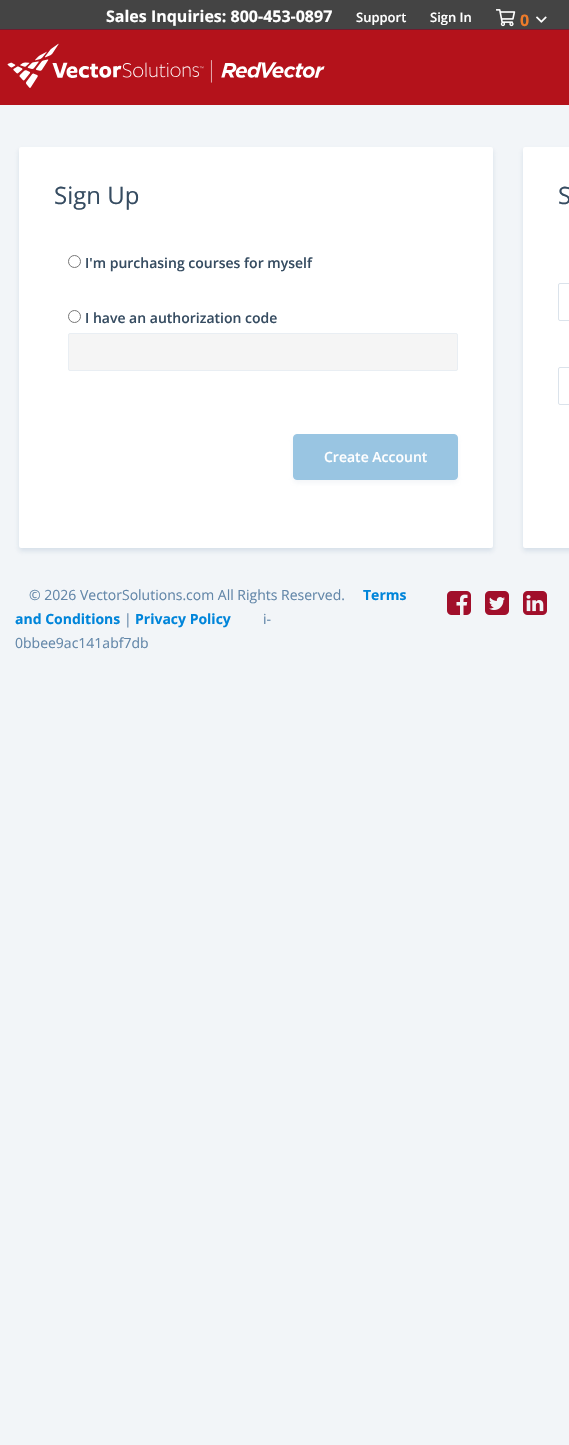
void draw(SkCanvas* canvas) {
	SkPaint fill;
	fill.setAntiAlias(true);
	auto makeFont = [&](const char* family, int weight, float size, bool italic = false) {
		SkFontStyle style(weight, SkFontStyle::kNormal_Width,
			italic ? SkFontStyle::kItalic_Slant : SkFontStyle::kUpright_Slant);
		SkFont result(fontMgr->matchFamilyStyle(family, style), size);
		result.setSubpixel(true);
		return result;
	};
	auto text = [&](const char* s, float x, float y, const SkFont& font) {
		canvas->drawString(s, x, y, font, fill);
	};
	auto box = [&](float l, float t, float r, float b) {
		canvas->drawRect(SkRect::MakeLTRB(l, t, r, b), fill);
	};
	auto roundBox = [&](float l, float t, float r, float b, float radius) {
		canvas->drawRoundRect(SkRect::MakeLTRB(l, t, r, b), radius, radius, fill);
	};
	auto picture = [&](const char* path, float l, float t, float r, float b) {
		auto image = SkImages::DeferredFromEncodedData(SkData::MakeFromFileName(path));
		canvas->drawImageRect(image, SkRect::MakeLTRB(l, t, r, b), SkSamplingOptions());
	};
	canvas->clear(0xFFF2F5F8);
	fill.setColor(0xFF444444);
	box(0, 0, 569, 29);
	fill.setColor(0xFF6F1C2F);
	box(0, 29, 569, 30);
	picture("image0.png", 496, 9, 516, 27);
	picture("image1.png", 536, 16, 547, 23);
	fill.setColor(0xFFB4121B);
	box(0, 30, 569, 105);
	picture("image2.png", 7, 43, 325, 88);
	fill.setColor(0x336387A9);
	fill.setMaskFilter(SkMaskFilter::MakeBlur(kNormal_SkBlurStyle, 2.5f));
	canvas->drawRoundRect(SkRect::MakeLTRB(19, 150, 493, 551), 2, 2, fill);
	fill.setMaskFilter(nullptr);
	fill.setColor(0xFFFFFFFF);
	roundBox(19, 147, 493, 548, 2);
	fill.setStyle(SkPaint::kStroke_Style);
	fill.setStrokeWidth(1);
	fill.setColor(0xFF767676);
	canvas->drawCircle(74.5f, 261.5f, 6, fill);
	canvas->drawCircle(74.5f, 316.5f, 6, fill);
	fill.setStyle(SkPaint::kFill_Style);
	fill.setColor(0xFFF5F5F5);
	canvas->drawRoundRect(SkRect::MakeLTRB(68.5f, 333.5f, 457.5f, 370.5f), 1.5f, 1.5f, fill);
	fill.setStyle(SkPaint::kStroke_Style);
	fill.setColor(0xFFE9EEF3);
	canvas->drawRoundRect(SkRect::MakeLTRB(68.5f, 333.5f, 457.5f, 370.5f), 1.5f, 1.5f, fill);
	fill.setStyle(SkPaint::kFill_Style);
	fill.setColor(0x33C1CFDD);
	fill.setMaskFilter(SkMaskFilter::MakeBlur(kNormal_SkBlurStyle, 2.5f));
	canvas->drawRoundRect(SkRect::MakeLTRB(293, 437, 458, 483), 4, 4, fill);
	fill.setMaskFilter(nullptr);
	fill.setColor(0xFF99C5E2);
	canvas->drawRoundRect(SkRect::MakeLTRB(293.5f, 434.5f, 457.5f, 479.5f), 3.5f, 3.5f, fill);
	fill.setStyle(SkPaint::kStroke_Style);
	canvas->drawRoundRect(SkRect::MakeLTRB(293.5f, 434.5f, 457.5f, 479.5f), 3.5f, 3.5f, fill);
	fill.setStyle(SkPaint::kFill_Style);
	fill.setColor(0x336387A9);
	fill.setMaskFilter(SkMaskFilter::MakeBlur(kNormal_SkBlurStyle, 2.5f));
	canvas->drawRoundRect(SkRect::MakeLTRB(523, 150, 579, 551), 2, 2, fill);
	fill.setMaskFilter(nullptr);
	fill.setColor(0xFFFFFFFF);
	roundBox(523, 147, 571, 548, 2);
	fill.setStyle(SkPaint::kStroke_Style);
	fill.setColor(0xFFDBE3EB);
	canvas->drawRoundRect(SkRect::MakeLTRB(558.5f, 283.5f, 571.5f, 320.5f), 1.5f, 1.5f, fill);
	canvas->drawRoundRect(SkRect::MakeLTRB(558.5f, 367.5f, 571.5f, 404.5f), 1.5f, 1.5f, fill);
	picture("image3.png", 447, 591, 471, 615);
	picture("image4.png", 485, 591, 509, 615);
	picture("image5.png", 523, 591, 547, 615);
	auto font1 = makeFont("Open Sans", 700, 16);
	fill.setStyle(SkPaint::kFill_Style);
	fill.setColor(0xFFFFFFFF);
	text("Sales Inquiries: 800-453-0897", 106, 22, font1);
	auto font2 = makeFont("Open Sans", 600, 13);
	text("Support", 356, 22, font2);
	text("Sign In", 430, 22, font2);
	fill.setColor(0xFFEE7B2A);
	text("0", 520, 26, font1);
	auto font3 = makeFont("Open Sans", 400, 24);
	fill.setColor(0xFF364C61);
	text("Sign Up", 54, 204, font3);
	auto font4 = makeFont("Open Sans", 600, 14);
	text("I'm purchasing courses for myself", 85, 268, font4);
	text("I have an authorization code", 85, 323, font4);
	fill.setColor(0xFFFFFFFF);
	text("Create Account", 324, 462, font4);
	fill.setColor(0xFF364C61);
	text("S", 558, 204, font3);
	auto font5 = makeFont("Open Sans", 400, 14);
	fill.setColor(0xFF6387A9);
	text("© 2026 VectorSolutions.com All Rights Reserved.", 29, 600, font5);
	auto font6 = makeFont("Open Sans", 700, 14);
	fill.setColor(0xFF0085DA);
	text("Terms", 363, 600, font6);
	text("and Conditions", 15, 624, font6);
	fill.setColor(0xFF6387A9);
	text("|", 124, 624, font5);
	fill.setColor(0xFF0085DA);
	text("Privacy Policy", 135, 624, font6);
	fill.setColor(0xFF6387A9);
	text("i-", 263, 624, font5);
	text("0bbee9ac141abf7db", 15, 648, font5);
}
